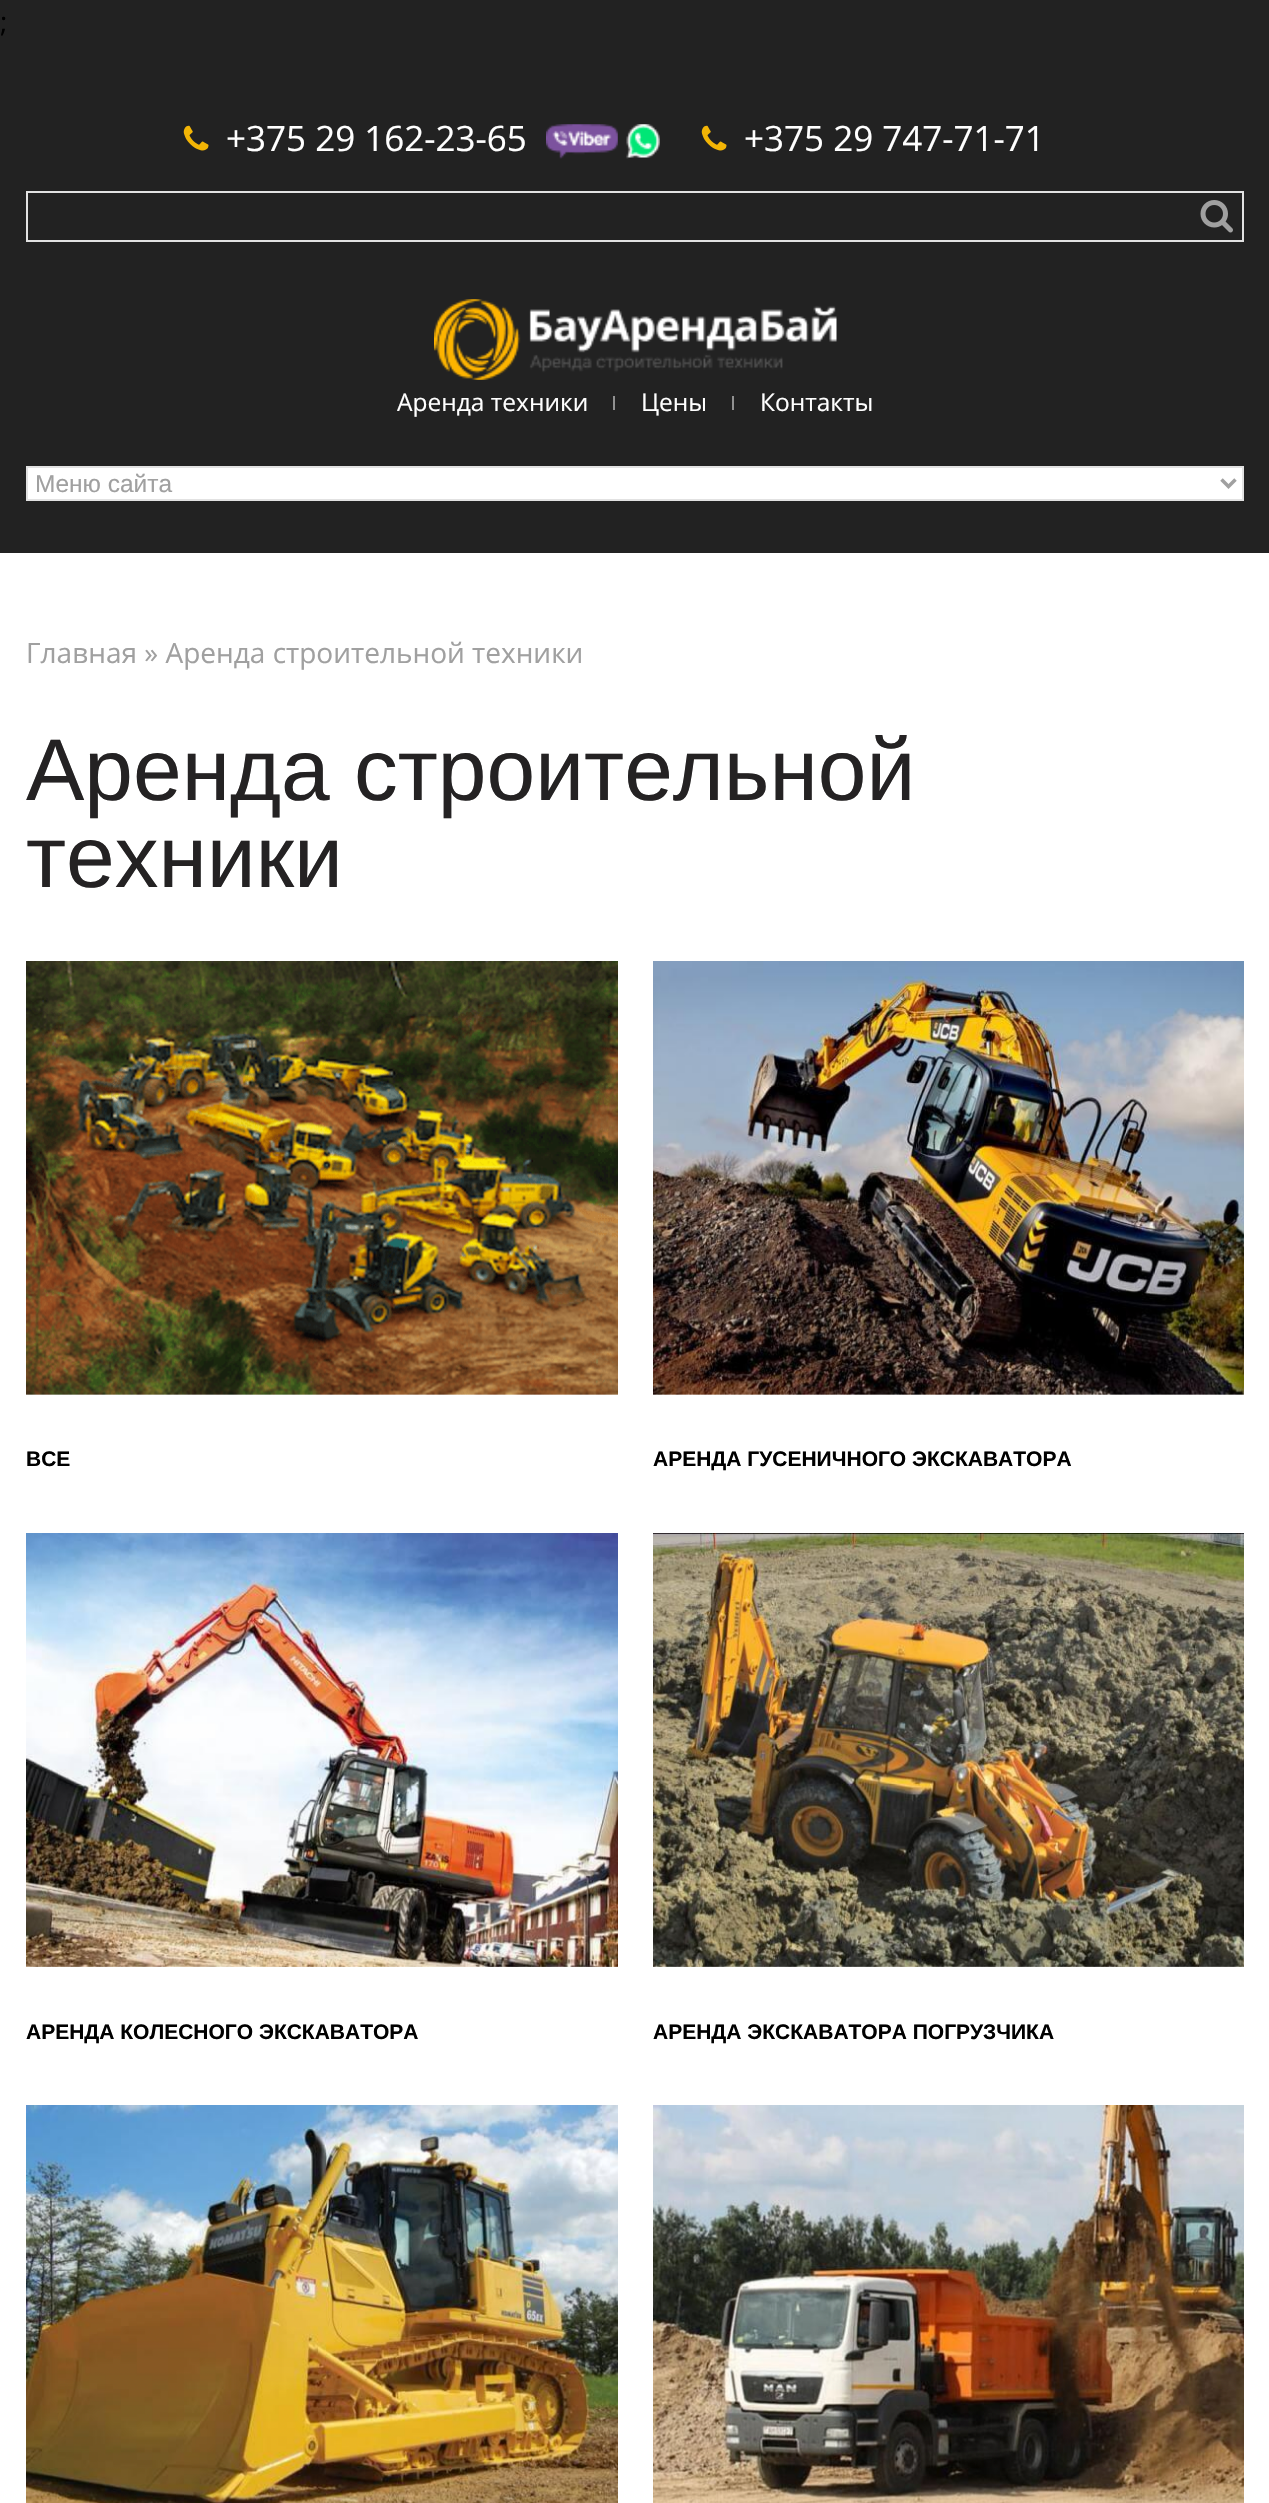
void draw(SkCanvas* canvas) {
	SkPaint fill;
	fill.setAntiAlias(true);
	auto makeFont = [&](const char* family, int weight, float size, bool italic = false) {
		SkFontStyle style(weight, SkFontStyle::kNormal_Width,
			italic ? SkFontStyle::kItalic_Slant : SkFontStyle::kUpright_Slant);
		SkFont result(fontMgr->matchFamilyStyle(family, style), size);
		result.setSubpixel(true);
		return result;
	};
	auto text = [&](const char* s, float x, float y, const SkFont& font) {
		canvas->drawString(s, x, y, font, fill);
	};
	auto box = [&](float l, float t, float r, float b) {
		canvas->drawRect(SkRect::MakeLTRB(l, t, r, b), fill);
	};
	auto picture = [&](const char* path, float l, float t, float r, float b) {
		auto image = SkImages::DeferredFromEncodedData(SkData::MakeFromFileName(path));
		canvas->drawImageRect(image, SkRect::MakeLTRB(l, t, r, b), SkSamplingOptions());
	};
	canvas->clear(0xFF222222);
	picture("image0.png", 183, 125, 209, 151);
	picture("image1.png", 546, 124, 618, 159);
	picture("image2.png", 626, 124, 660, 159);
	picture("image0.png", 701, 125, 727, 151);
	fill.setStyle(SkPaint::kStroke_Style);
	fill.setStrokeWidth(2);
	fill.setColor(0xFFE2E2E2);
	canvas->drawRect(SkRect::MakeLTRB(27, 192, 1243, 241), fill);
	picture("image3.png", 1200, 200, 1233, 233);
	picture("image4.png", 434, 299, 837, 380);
	fill.setStyle(SkPaint::kFill_Style);
	fill.setColor(0xFF919191);
	box(613, 396, 615, 410);
	box(732, 396, 734, 410);
	fill.setColor(0xFFFFFFFF);
	canvas->drawRect(SkRect::MakeLTRB(27, 467, 1243, 500), fill);
	fill.setStyle(SkPaint::kStroke_Style);
	fill.setColor(0xFFE2E2E2);
	canvas->drawRect(SkRect::MakeLTRB(27, 467, 1243, 500), fill);
	fill.setStrokeWidth(3.5f);
	fill.setColor(0xFFA0A0A0);
	canvas->drawPath(SkPathBuilder().moveTo(1221.5f, 479.5f).lineTo(1228.5f, 486.5f).lineTo(1235.5f, 479.5f).detach(), fill);
	fill.setStyle(SkPaint::kFill_Style);
	fill.setColor(0xFFFFFFFF);
	box(0, 553, 1269, 2503);
	picture("image5.png", 26, 961, 618, 1395);
	picture("image6.png", 653, 961, 1244, 1395);
	picture("image7.png", 26, 1533, 618, 1967);
	picture("image8.png", 653, 1533, 1244, 1967);
	picture("image9.png", 26, 2105, 618, 2503);
	picture("image10.png", 653, 2105, 1244, 2503);
	auto font1 = makeFont("Open Sans", 400, 28);
	fill.setColor(0xFF000000);
	text(";", 0, 32, font1);
	auto font2 = makeFont("Open Sans", 400, 35);
	fill.setColor(0xFFFFFFFF);
	text("+375 29 162-23-65", 226, 151, font2);
	text("+375 29 747-71-71", 744, 151, font2);
	auto font3 = makeFont("Open Sans", 400, 24.5f);
	text("Аренда техники", 397, 411, font3);
	text("Цены", 641, 411, font3);
	text("Контакты", 760, 411, font3);
	auto font4 = makeFont("Liberation Sans", 400, 24.5f);
	fill.setColor(0xFFA0A0A0);
	text("Меню сайта", 35, 492, font4);
	text("Главная » Аренда строительной техники", 26, 663, font1);
	auto font5 = makeFont("Liberation Sans", 400, 87.5f);
	fill.setColor(0xFF242223);
	text("Аренда строительной", 26, 800, font5);
	text("техники", 26, 887, font5);
	auto font6 = makeFont("Liberation Sans", 700, 21);
	fill.setColor(0xFF000000);
	text("ВСЕ", 26, 1466, font6);
	text("АРЕНДА ГУСЕНИЧНОГО ЭКСКАВАТОРА", 653, 1466, font6);
	text("АРЕНДА КОЛЕСНОГО ЭКСКАВАТОРА", 26, 2039, font6);
	text("АРЕНДА ЭКСКАВАТОРА ПОГРУЗЧИКА", 653, 2039, font6);
}
